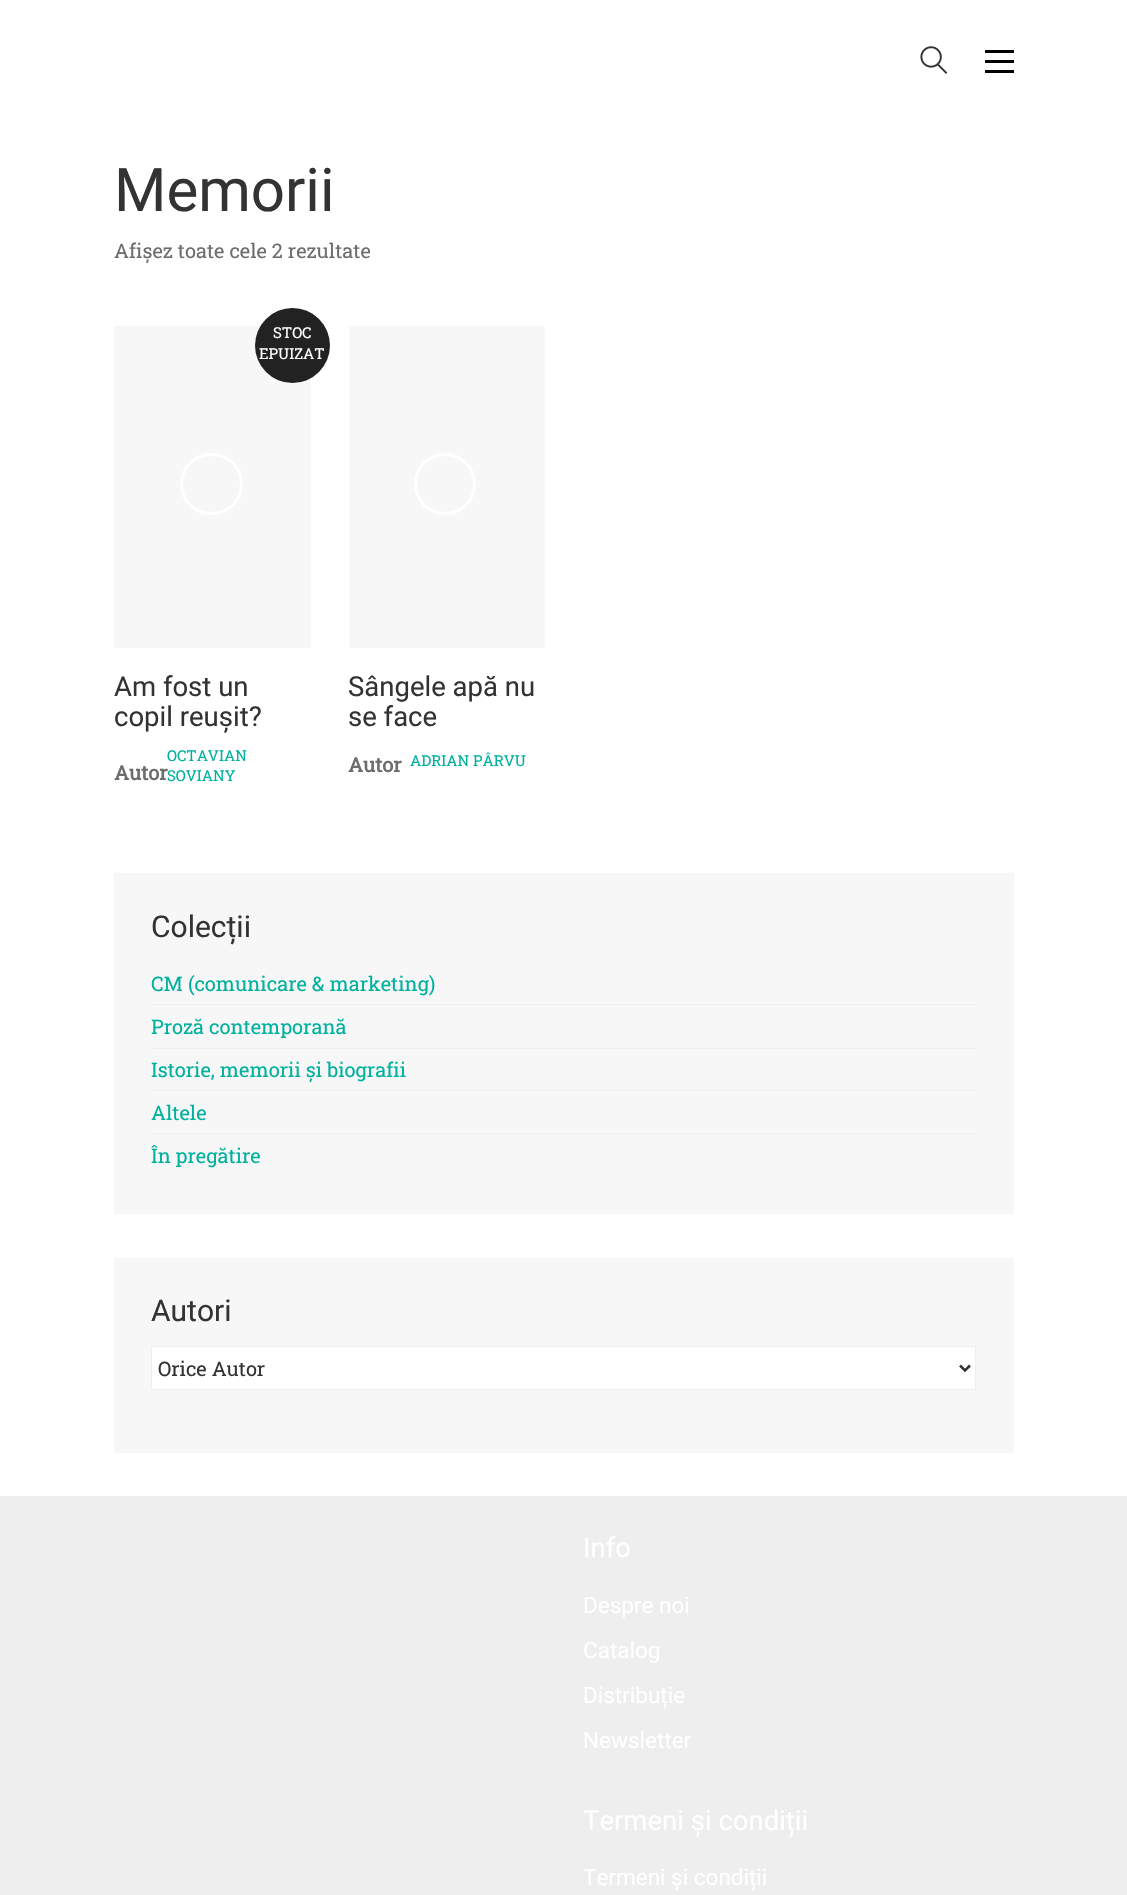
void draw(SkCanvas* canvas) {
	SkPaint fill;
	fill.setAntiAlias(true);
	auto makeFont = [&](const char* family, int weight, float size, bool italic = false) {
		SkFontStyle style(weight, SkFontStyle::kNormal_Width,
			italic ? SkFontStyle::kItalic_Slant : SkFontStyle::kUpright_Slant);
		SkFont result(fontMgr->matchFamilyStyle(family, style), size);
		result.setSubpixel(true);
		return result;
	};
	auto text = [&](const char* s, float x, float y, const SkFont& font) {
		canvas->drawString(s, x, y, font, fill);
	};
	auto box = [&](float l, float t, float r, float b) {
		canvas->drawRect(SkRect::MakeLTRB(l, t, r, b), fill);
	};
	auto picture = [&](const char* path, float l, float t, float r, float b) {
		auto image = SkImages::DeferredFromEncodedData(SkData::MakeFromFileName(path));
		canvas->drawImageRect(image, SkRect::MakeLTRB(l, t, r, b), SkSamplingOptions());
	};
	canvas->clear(0xFFFFFFFF);
	picture("image0.png", 920, 46, 948, 74);
	fill.setColor(0xFF000000);
	box(985, 50, 1014, 53);
	box(985, 60, 1014, 63);
	box(985, 70, 1014, 73);
	fill.setColor(0xFFF7F7F7);
	box(114, 326, 311, 648);
	fill.setStyle(SkPaint::kStroke_Style);
	fill.setStrokeWidth(3);
	fill.setColor(0xFFFFFFFF);
	canvas->drawRoundRect(SkRect::MakeLTRB(181.5f, 454.5f, 241.5f, 513.5f), 29.5f, 29.5f, fill);
	fill.setStyle(SkPaint::kFill_Style);
	fill.setColor(0xFF222222);
	canvas->drawCircle(292.5f, 345.5f, 37.5f, fill);
	fill.setColor(0xFFF7F7F7);
	box(349, 326, 545, 648);
	fill.setStyle(SkPaint::kStroke_Style);
	fill.setColor(0xFFFFFFFF);
	canvas->drawCircle(445, 484, 29.5f, fill);
	fill.setStyle(SkPaint::kFill_Style);
	fill.setColor(0xFFF7F7F7);
	box(114, 873, 1014, 1214);
	fill.setColor(0xFFEEEEEE);
	box(151, 1004, 976, 1005);
	box(151, 1048, 976, 1049);
	box(151, 1090, 976, 1091);
	box(151, 1133, 976, 1134);
	fill.setColor(0xFFF7F7F7);
	box(114, 1258, 1014, 1453);
	fill.setColor(0xFFFFFFFF);
	canvas->drawRect(SkRect::MakeLTRB(151.5f, 1346.5f, 975.5f, 1389.5f), fill);
	fill.setStyle(SkPaint::kStroke_Style);
	fill.setStrokeWidth(1);
	fill.setColor(0xFFEEEEEE);
	canvas->drawRect(SkRect::MakeLTRB(151.5f, 1346.5f, 975.5f, 1389.5f), fill);
	fill.setStrokeWidth(2.5f);
	fill.setColor(0xFF333333);
	canvas->drawPath(SkPathBuilder().moveTo(960, 1365.5f).lineTo(965, 1370.5f).lineTo(970, 1365.5f).detach(), fill);
	fill.setStyle(SkPaint::kFill_Style);
	fill.setColor(0xFFEEEEEE);
	box(0, 1496, 1127, 1895);
	auto font1 = makeFont("Roboto", 400, 60);
	fill.setColor(0xFF333333);
	text("Memorii", 114, 211, font1);
	auto font2 = makeFont("Roboto Slab", 400, 20);
	fill.setColor(0xFF6D6D6D);
	text("Afișez toate cele 2 rezultate", 114, 258, font2);
	auto font3 = makeFont("Roboto Slab", 400, 15);
	fill.setColor(0xFFFFFFFF);
	text("STOC", 273, 338, font3);
	text("EPUIZAT", 259, 359, font3);
	auto font4 = makeFont("Roboto", 400, 27.5f);
	fill.setColor(0xFF333333);
	text("Am fost un", 114, 696, font4);
	text("copil reușit?", 114, 726, font4);
	auto font5 = makeFont("Roboto Slab", 700, 20);
	fill.setColor(0xFF6D6D6D);
	text("Autor", 114, 780, font5);
	fill.setColor(0xFF00B19E);
	text("OCTAVIAN", 167, 761, font3);
	text("SOVIANY", 167, 781, font3);
	fill.setColor(0xFF333333);
	text("Sângele apă nu", 348, 696, font4);
	text("se face", 348, 726, font4);
	fill.setColor(0xFF6D6D6D);
	text("Autor", 348, 772, font5);
	fill.setColor(0xFF00B19E);
	text("ADRIAN PÂRVU", 410, 766, font3);
	auto font6 = makeFont("Roboto", 400, 30);
	fill.setColor(0xFF333333);
	text("Colecții", 151, 937, font6);
	fill.setColor(0xFF00B19E);
	text("CM (comunicare & marketing)", 151, 991, font2);
	text("Proză contemporană", 151, 1034, font2);
	text("Istorie, memorii și biografii", 151, 1077, font2);
	text("Altele", 151, 1120, font2);
	text("În pregătire", 151, 1163, font2);
	fill.setColor(0xFF333333);
	text("Autori", 151, 1321, font6);
	text("Orice Autor", 158, 1376, font2);
	fill.setColor(0xFFFFFFFF);
	text("Info", 583, 1557, font4);
	auto font7 = makeFont("Roboto", 400, 22.5f);
	text("Despre noi", 583, 1613, font7);
	text("Catalog", 583, 1658, font7);
	text("Distribuție", 583, 1703, font7);
	text("Newsletter", 583, 1748, font7);
	text("Termeni și condiții", 583, 1830, font4);
	text("Termeni și condiții", 583, 1885, font7);
}
